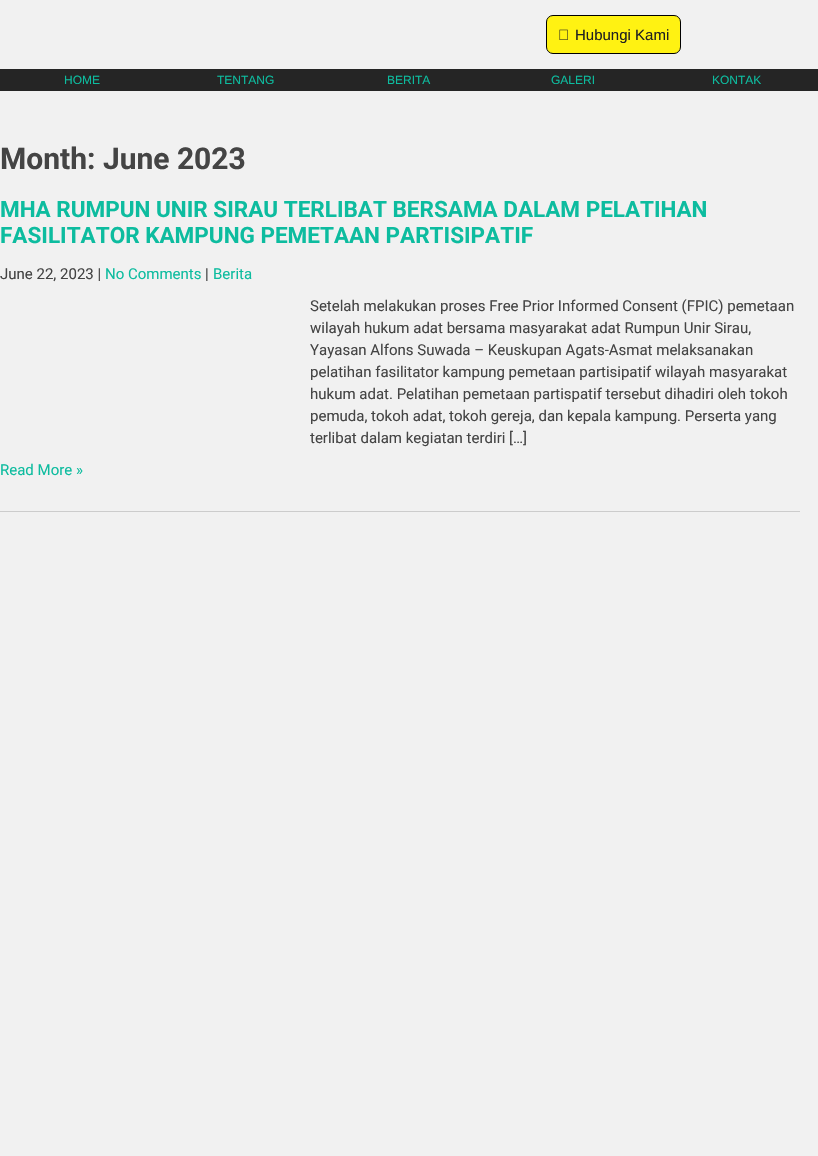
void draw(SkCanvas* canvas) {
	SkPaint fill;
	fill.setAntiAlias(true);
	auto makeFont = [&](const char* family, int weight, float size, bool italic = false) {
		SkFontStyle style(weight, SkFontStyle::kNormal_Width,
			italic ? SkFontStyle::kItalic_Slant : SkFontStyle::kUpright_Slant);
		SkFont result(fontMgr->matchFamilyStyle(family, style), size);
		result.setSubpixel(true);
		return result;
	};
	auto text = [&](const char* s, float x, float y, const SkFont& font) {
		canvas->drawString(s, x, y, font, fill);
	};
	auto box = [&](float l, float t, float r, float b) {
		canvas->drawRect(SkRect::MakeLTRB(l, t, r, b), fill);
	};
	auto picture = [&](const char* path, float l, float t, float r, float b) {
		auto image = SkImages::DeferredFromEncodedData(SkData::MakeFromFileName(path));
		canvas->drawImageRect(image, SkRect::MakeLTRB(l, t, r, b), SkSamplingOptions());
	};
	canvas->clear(0xFFF1F1F1);
	fill.setColor(0xFFFFF212);
	canvas->drawRoundRect(SkRect::MakeLTRB(546.5f, 15.5f, 680.5f, 53.5f), 6.5f, 6.5f, fill);
	fill.setStyle(SkPaint::kStroke_Style);
	fill.setStrokeWidth(1);
	fill.setColor(0xFF000000);
	canvas->drawRoundRect(SkRect::MakeLTRB(546.5f, 15.5f, 680.5f, 53.5f), 6.5f, 6.5f, fill);
	picture("image0.png", 559, 29, 568, 40);
	fill.setStyle(SkPaint::kFill_Style);
	fill.setColor(0xFF252525);
	box(0, 69, 818, 91);
	fill.setColor(0xFFCCCCCC);
	box(0, 511, 800, 512);
	auto font1 = makeFont("Liberation Sans", 400, 15);
	fill.setColor(0xFF212121);
	text("Hubungi Kami", 575, 40, font1);
	auto font2 = makeFont("Liberation Sans", 400, 12);
	fill.setColor(0xFF0DBC9F);
	text("HOME", 64, 84, font2);
	text("TENTANG", 217, 84, font2);
	text("BERITA", 387, 84, font2);
	text("GALERI", 551, 84, font2);
	text("KONTAK", 712, 84, font2);
	auto font3 = makeFont("Roboto", 700, 30);
	fill.setColor(0xFF444444);
	text("Month: June 2023", 0, 169, font3);
	auto font4 = makeFont("Roboto", 700, 22.5f);
	fill.setColor(0xFF0DBC9F);
	text("MHA RUMPUN UNIR SIRAU TERLIBAT BERSAMA DALAM PELATIHAN", 0, 217, font4);
	text("FASILITATOR KAMPUNG PEMETAAN PARTISIPATIF", 0, 243, font4);
	auto font5 = makeFont("Roboto", 400, 15);
	fill.setColor(0xFF444444);
	text("June 22, 2023 |", 0, 279, font5);
	fill.setColor(0xFF0DBC9F);
	text("No Comments", 105, 279, font5);
	fill.setColor(0xFF444444);
	text("|", 205, 279, font5);
	fill.setColor(0xFF0DBC9F);
	text("Berita", 213, 279, font5);
	fill.setColor(0xFF444444);
	text("Setelah melakukan proses Free Prior Informed Consent (FPIC) pemetaan", 310, 311, font5);
	text("wilayah hukum adat bersama masyarakat adat Rumpun Unir Sirau,", 310, 333, font5);
	text("Yayasan Alfons Suwada – Keuskupan Agats-Asmat melaksanakan", 310, 355, font5);
	text("pelatihan fasilitator kampung pemetaan partisipatif wilayah masyarakat", 310, 377, font5);
	text("hukum adat. Pelatihan pemetaan partispatif tersebut dihadiri oleh tokoh", 310, 399, font5);
	text("pemuda, tokoh adat, tokoh gereja, dan kepala kampung. Perserta yang", 310, 421, font5);
	text("terlibat dalam kegiatan terdiri […]", 310, 443, font5);
	fill.setColor(0xFF0DBC9F);
	text("Read More »", 0, 475, font5);
}
